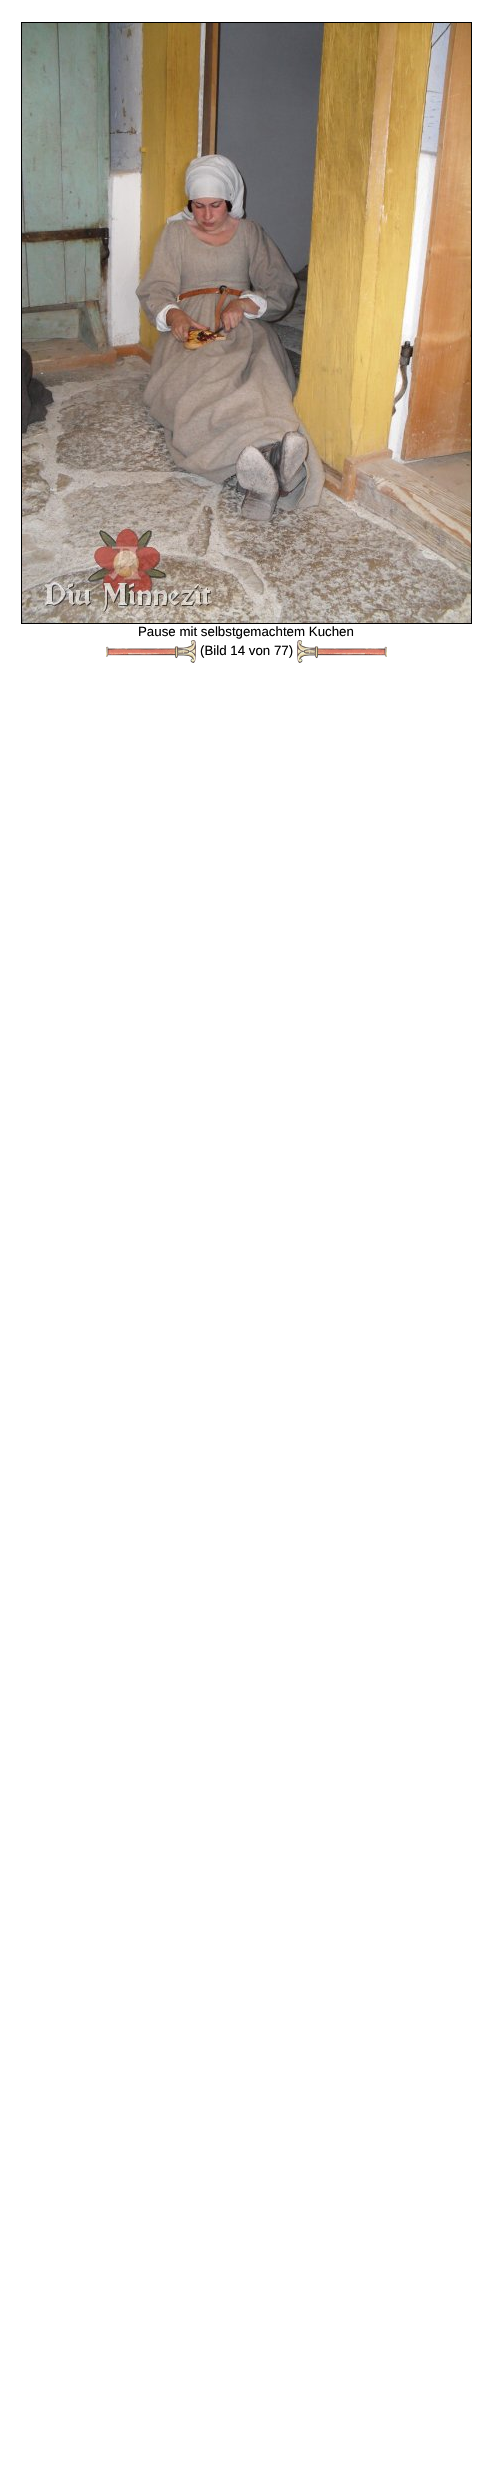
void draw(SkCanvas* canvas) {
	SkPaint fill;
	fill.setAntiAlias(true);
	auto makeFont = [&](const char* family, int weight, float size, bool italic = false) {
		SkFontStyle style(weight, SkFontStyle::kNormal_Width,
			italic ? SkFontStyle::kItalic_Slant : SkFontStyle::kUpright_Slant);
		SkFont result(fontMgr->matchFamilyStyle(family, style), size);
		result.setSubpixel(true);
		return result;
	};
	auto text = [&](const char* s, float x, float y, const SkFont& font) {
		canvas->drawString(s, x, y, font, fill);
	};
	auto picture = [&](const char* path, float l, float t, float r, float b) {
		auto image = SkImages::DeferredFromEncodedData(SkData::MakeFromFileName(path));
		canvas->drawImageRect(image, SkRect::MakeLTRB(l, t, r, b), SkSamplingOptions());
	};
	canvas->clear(0xFFFFFFFF);
	fill.setStyle(SkPaint::kStroke_Style);
	fill.setStrokeWidth(1);
	fill.setColor(0xFF000000);
	canvas->drawRect(SkRect::MakeLTRB(21.5f, 22.5f, 471.5f, 623.5f), fill);
	picture("image0.png", 22, 23, 471, 623);
	picture("image1.png", 106, 640, 196, 663);
	picture("image2.png", 297, 640, 387, 663);
	auto font1 = makeFont("Liberation Sans", 400, 13.3f);
	fill.setStyle(SkPaint::kFill_Style);
	text("Pause mit selbstgemachtem Kuchen", 138, 636, font1);
	text("(Bild 14 von 77)", 200, 655, font1);
}
